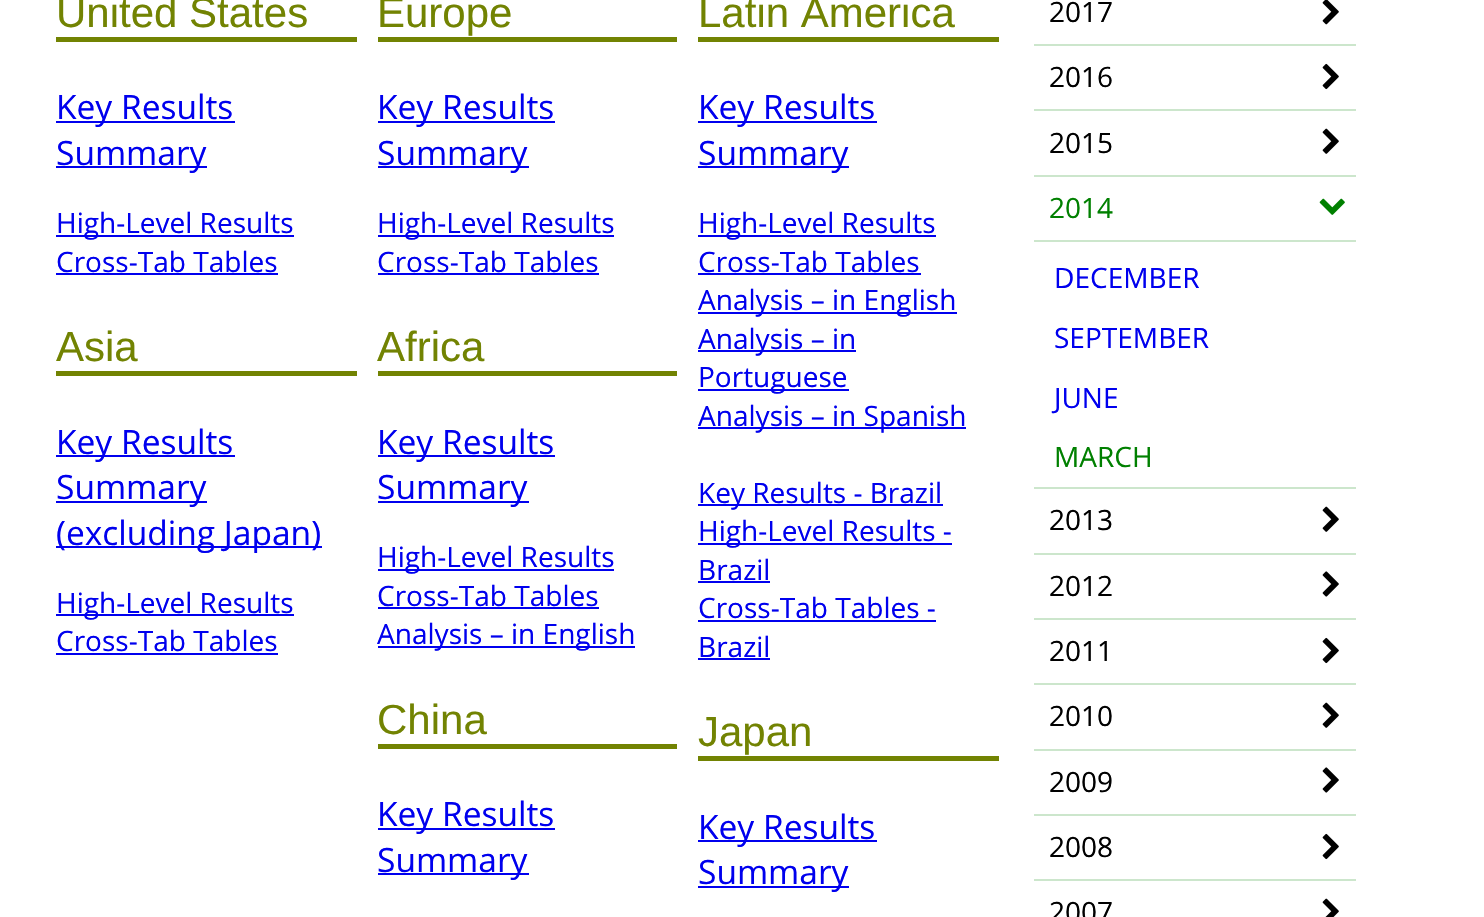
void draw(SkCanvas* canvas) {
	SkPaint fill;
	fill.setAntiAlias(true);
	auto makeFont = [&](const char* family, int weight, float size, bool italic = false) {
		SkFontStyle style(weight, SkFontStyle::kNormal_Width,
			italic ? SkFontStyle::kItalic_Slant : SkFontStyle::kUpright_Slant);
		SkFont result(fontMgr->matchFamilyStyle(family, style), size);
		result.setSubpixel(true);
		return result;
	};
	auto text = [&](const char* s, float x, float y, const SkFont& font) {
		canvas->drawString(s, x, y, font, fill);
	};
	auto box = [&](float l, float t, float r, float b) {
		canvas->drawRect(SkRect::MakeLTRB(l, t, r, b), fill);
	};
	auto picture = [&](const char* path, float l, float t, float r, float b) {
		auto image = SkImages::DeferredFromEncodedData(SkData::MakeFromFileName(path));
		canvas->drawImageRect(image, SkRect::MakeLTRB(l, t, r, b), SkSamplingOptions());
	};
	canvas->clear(0xFFFFFFFF);
	fill.setColor(0xFF728302);
	box(56, 37, 357, 42);
	fill.setColor(0xFF0000EE);
	box(56, 121, 235, 123);
	box(56, 166, 207, 168);
	box(56, 235, 294, 237);
	box(56, 273, 278, 275);
	fill.setColor(0xFF728302);
	box(56, 371, 357, 376);
	fill.setColor(0xFF0000EE);
	box(56, 455, 235, 457);
	box(56, 501, 207, 503);
	box(56, 546, 322, 548);
	box(56, 614, 294, 616);
	box(56, 653, 278, 655);
	fill.setColor(0xFF728302);
	box(378, 37, 677, 42);
	fill.setColor(0xFF0000EE);
	box(378, 121, 555, 123);
	box(378, 166, 529, 168);
	box(378, 235, 614, 237);
	box(378, 273, 599, 275);
	fill.setColor(0xFF728302);
	box(378, 371, 677, 376);
	fill.setColor(0xFF0000EE);
	box(378, 455, 555, 457);
	box(378, 501, 529, 503);
	box(378, 569, 614, 571);
	box(378, 607, 599, 609);
	box(378, 646, 635, 648);
	fill.setColor(0xFF728302);
	box(378, 744, 677, 749);
	fill.setColor(0xFF0000EE);
	box(378, 828, 555, 830);
	box(378, 873, 529, 875);
	fill.setColor(0xFF728302);
	box(698, 37, 999, 42);
	fill.setColor(0xFF0000EE);
	box(698, 121, 877, 123);
	box(698, 166, 849, 168);
	box(698, 235, 936, 237);
	box(698, 273, 921, 275);
	box(698, 312, 957, 314);
	box(698, 350, 856, 352);
	box(698, 389, 849, 391);
	box(698, 427, 966, 429);
	box(698, 504, 943, 506);
	box(698, 543, 952, 545);
	box(698, 581, 770, 583);
	box(698, 620, 936, 622);
	box(698, 658, 770, 660);
	fill.setColor(0xFF728302);
	box(698, 756, 999, 761);
	fill.setColor(0xFF0000EE);
	box(698, 840, 877, 842);
	box(698, 886, 849, 888);
	picture("image0.png", 1322, 0, 1339, 25);
	fill.setColor(0xFFCCE6CC);
	box(1034, 44, 1356, 46);
	picture("image1.png", 1322, 63, 1339, 90);
	box(1034, 109, 1356, 111);
	picture("image2.png", 1322, 128, 1339, 154);
	box(1034, 175, 1356, 177);
	picture("image3.png", 1319, 198, 1345, 215);
	box(1034, 240, 1356, 242);
	box(1034, 487, 1356, 489);
	picture("image2.png", 1322, 506, 1339, 532);
	box(1034, 553, 1356, 555);
	picture("image4.png", 1322, 571, 1339, 597);
	box(1034, 618, 1356, 620);
	picture("image1.png", 1322, 637, 1339, 664);
	box(1034, 683, 1356, 685);
	picture("image2.png", 1322, 702, 1339, 728);
	box(1034, 749, 1356, 751);
	picture("image4.png", 1322, 767, 1339, 793);
	box(1034, 814, 1356, 816);
	picture("image1.png", 1322, 833, 1339, 860);
	box(1034, 879, 1356, 881);
	picture("image5.png", 1322, 898, 1339, 917);
	auto font1 = makeFont("Liberation Sans", 400, 42);
	fill.setColor(0xFF728302);
	text("United States", 56, 27, font1);
	auto font2 = makeFont("Open Sans", 400, 33.5f);
	fill.setColor(0xFF0000EE);
	text("Key Results", 56, 119, font2);
	text("Summary", 56, 165, font2);
	auto font3 = makeFont("Open Sans", 400, 28);
	text("High-Level Results", 56, 233, font3);
	text("Cross-Tab Tables", 56, 272, font3);
	fill.setColor(0xFF728302);
	text("Asia", 56, 361, font1);
	fill.setColor(0xFF0000EE);
	text("Key Results", 56, 454, font2);
	text("Summary", 56, 499, font2);
	text("(excluding Japan)", 56, 545, font2);
	text("High-Level Results", 56, 613, font3);
	text("Cross-Tab Tables", 56, 651, font3);
	fill.setColor(0xFF728302);
	text("Europe", 377, 27, font1);
	fill.setColor(0xFF0000EE);
	text("Key Results", 377, 119, font2);
	text("Summary", 377, 165, font2);
	text("High-Level Results", 377, 233, font3);
	text("Cross-Tab Tables", 377, 272, font3);
	fill.setColor(0xFF728302);
	text("Africa", 377, 361, font1);
	fill.setColor(0xFF0000EE);
	text("Key Results", 377, 454, font2);
	text("Summary", 377, 499, font2);
	text("High-Level Results", 377, 567, font3);
	text("Cross-Tab Tables", 377, 606, font3);
	text("Analysis – in English", 377, 644, font3);
	fill.setColor(0xFF728302);
	text("China", 377, 734, font1);
	fill.setColor(0xFF0000EE);
	text("Key Results", 377, 826, font2);
	text("Summary", 377, 872, font2);
	fill.setColor(0xFF728302);
	text("Latin America", 698, 27, font1);
	fill.setColor(0xFF0000EE);
	text("Key Results", 698, 119, font2);
	text("Summary", 698, 165, font2);
	text("High-Level Results", 698, 233, font3);
	text("Cross-Tab Tables", 698, 272, font3);
	text("Analysis – in English", 698, 310, font3);
	text("Analysis – in", 698, 349, font3);
	text("Portuguese", 698, 387, font3);
	text("Analysis – in Spanish", 698, 426, font3);
	text("Key Results - Brazil", 698, 503, font3);
	text("High-Level Results -", 698, 541, font3);
	text("Brazil", 698, 580, font3);
	text("Cross-Tab Tables -", 698, 618, font3);
	text("Brazil", 698, 657, font3);
	fill.setColor(0xFF728302);
	text("Japan", 698, 746, font1);
	fill.setColor(0xFF0000EE);
	text("Key Results", 698, 839, font2);
	text("Summary", 698, 884, font2);
	fill.setColor(0xFF000000);
	text("2017", 1049, 22, font3);
	text("2016", 1049, 87, font3);
	text("2015", 1049, 153, font3);
	fill.setColor(0xFF008000);
	text("2014", 1049, 218, font3);
	fill.setColor(0xFF0000EE);
	text("DECEMBER", 1054, 288, font3);
	text("SEPTEMBER", 1054, 348, font3);
	text("JUNE", 1054, 408, font3);
	fill.setColor(0xFF008000);
	text("MARCH", 1054, 467, font3);
	fill.setColor(0xFF000000);
	text("2013", 1049, 530, font3);
	text("2012", 1049, 596, font3);
	text("2011", 1049, 661, font3);
	text("2010", 1049, 726, font3);
	text("2009", 1049, 792, font3);
	text("2008", 1049, 857, font3);
	text("2007", 1049, 922, font3);
}
